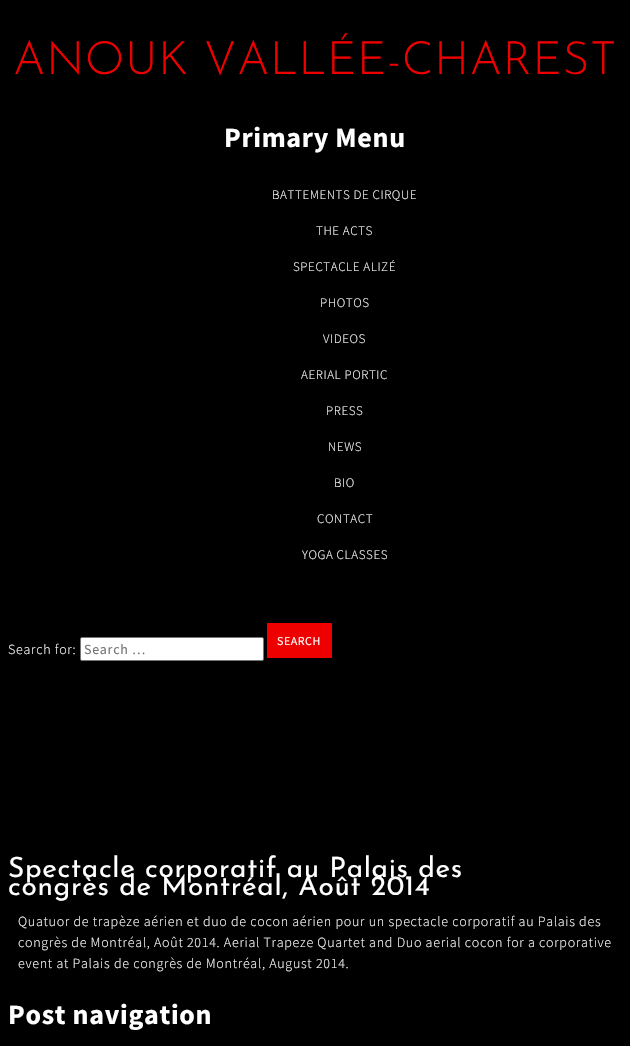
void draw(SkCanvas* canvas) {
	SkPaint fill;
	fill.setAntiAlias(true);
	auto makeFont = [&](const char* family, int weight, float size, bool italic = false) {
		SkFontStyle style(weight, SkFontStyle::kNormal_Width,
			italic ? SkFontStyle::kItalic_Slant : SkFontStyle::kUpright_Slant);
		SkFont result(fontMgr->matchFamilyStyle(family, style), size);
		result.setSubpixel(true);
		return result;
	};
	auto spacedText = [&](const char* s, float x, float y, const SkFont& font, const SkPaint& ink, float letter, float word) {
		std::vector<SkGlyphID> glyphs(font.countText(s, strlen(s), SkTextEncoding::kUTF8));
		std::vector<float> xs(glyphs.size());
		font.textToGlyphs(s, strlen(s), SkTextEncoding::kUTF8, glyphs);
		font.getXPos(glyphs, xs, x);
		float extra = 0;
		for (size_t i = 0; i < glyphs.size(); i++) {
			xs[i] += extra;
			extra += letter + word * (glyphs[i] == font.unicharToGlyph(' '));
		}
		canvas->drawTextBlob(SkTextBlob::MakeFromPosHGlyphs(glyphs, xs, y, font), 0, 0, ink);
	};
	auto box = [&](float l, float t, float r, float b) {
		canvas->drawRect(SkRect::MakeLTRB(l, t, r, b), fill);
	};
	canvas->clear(0xFF000000);
	fill.setColor(0xFFEE0000);
	box(267, 623, 332, 658);
	fill.setColor(0xFFFFFFFF);
	canvas->drawRoundRect(SkRect::MakeLTRB(80.5f, 637.5f, 263.5f, 660.5f), 1.5f, 1.5f, fill);
	fill.setStyle(SkPaint::kStroke_Style);
	fill.setStrokeWidth(1);
	fill.setColor(0xFF767676);
	canvas->drawRoundRect(SkRect::MakeLTRB(80.5f, 637.5f, 263.5f, 660.5f), 1.5f, 1.5f, fill);
	auto font1 = makeFont("Josefin Sans", 300, 46);
	fill.setStyle(SkPaint::kFill_Style);
	fill.setColor(0xFFEE0000);
	spacedText("ANOUK VALLÉE-CHAREST", 13, 74, font1, fill, 0.7f, 0);
	auto font2 = makeFont("Source Sans Pro", 700, 28);
	fill.setColor(0xFFFFFFFF);
	spacedText("Primary Menu", 224, 147, font2, fill, 0.7f, 0);
	auto font3 = makeFont("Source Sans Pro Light", 300, 13);
	spacedText("BATTEMENTS DE CIRQUE", 272, 199, font3, fill, 0.6f, 0);
	spacedText("THE ACTS", 316, 235, font3, fill, 0.6f, 0);
	spacedText("SPECTACLE ALIZÉ", 293, 271, font3, fill, 0.6f, 0);
	spacedText("PHOTOS", 320, 307, font3, fill, 0.6f, 0);
	spacedText("VIDEOS", 323, 343, font3, fill, 0.6f, 0);
	spacedText("AERIAL PORTIC", 301, 379, font3, fill, 0.6f, 0);
	spacedText("PRESS", 326, 415, font3, fill, 0.6f, 0);
	spacedText("NEWS", 328, 451, font3, fill, 0.6f, 0);
	spacedText("BIO", 334, 487, font3, fill, 0.6f, 0);
	spacedText("CONTACT", 317, 523, font3, fill, 0.6f, 0);
	spacedText("YOGA CLASSES", 302, 559, font3, fill, 0.6f, 0);
	auto font4 = makeFont("Source Sans Pro", 400, 12);
	spacedText("SEARCH", 277, 645, font4, fill, 0.5f, 0);
	auto font5 = makeFont("Source Sans Pro Light", 300, 14);
	spacedText("Search for:", 8, 654, font5, fill, 0.7f, 0);
	auto font6 = makeFont("Source Sans Pro", 400, 14);
	fill.setColor(0xFF757575);
	spacedText("Search …", 84, 654, font6, fill, 0.7f, 0);
	auto font7 = makeFont("Josefin Sans", 400, 28);
	fill.setColor(0xFFFFFFFF);
	spacedText("Spectacle corporatif au Palais des", 8, 877, font7, fill, 0.7f, 0);
	spacedText("congrès de Montréal, Août 2014", 8, 895, font7, fill, 0.7f, 0);
	spacedText("Quatuor de trapèze aérien et duo de cocon aérien pour un spectacle corporatif au Palais des", 18, 926, font5, fill, 0.7f, 0);
	spacedText("congrès de Montréal, Août 2014. Aerial Trapeze Quartet and Duo aerial cocon for a corporative", 18, 947, font5, fill, 0.7f, 0);
	spacedText("event at Palais de congrès de Montréal, August 2014.", 18, 968, font5, fill, 0.7f, 0);
	spacedText("Post navigation", 8, 1024, font2, fill, 0.7f, 0);
}
